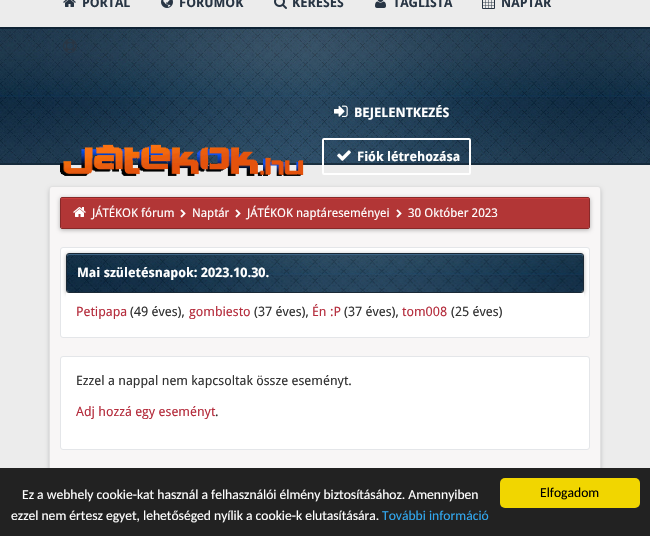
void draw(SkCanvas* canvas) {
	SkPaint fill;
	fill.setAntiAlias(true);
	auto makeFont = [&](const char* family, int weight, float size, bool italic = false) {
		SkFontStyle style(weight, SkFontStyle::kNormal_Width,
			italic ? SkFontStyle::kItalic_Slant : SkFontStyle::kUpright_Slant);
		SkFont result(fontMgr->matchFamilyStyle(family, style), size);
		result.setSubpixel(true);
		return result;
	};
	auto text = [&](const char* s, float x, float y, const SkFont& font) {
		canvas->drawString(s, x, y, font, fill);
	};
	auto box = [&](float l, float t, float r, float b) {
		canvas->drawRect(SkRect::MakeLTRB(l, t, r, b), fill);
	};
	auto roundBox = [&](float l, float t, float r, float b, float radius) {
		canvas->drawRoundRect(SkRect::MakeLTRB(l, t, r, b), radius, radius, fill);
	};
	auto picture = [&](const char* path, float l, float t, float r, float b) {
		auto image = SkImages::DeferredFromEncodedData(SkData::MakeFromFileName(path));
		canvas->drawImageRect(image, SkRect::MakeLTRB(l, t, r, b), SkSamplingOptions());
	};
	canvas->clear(0xFFECECEC);
	picture("image0.png", 0, 27, 650, 165);
	picture("image1.png", 63, 0, 76, 7);
	picture("image2.png", 161, 0, 173, 8);
	picture("image3.png", 274, 0, 287, 9);
	picture("image4.png", 375, 0, 386, 8);
	picture("image5.png", 482, 0, 495, 9);
	picture("image6.png", 63, 39, 77, 53);
	picture("image7.png", 60, 144, 304, 176);
	picture("image8.png", 334, 105, 348, 117);
	fill.setStyle(SkPaint::kStroke_Style);
	fill.setStrokeWidth(2);
	fill.setColor(0xFFFFFFFF);
	canvas->drawRoundRect(SkRect::MakeLTRB(323, 139, 470, 174), 1, 1, fill);
	picture("image9.png", 337, 150, 351, 161);
	fill.setStyle(SkPaint::kFill_Style);
	fill.setColor(0xFFADAEAF);
	fill.setMaskFilter(SkMaskFilter::MakeBlur(kNormal_SkBlurStyle, 2.5f));
	canvas->drawRoundRect(SkRect::MakeLTRB(50, 189, 600, 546), 2, 2, fill);
	fill.setMaskFilter(nullptr);
	fill.setColor(0xFFF8F6F6);
	canvas->drawRoundRect(SkRect::MakeLTRB(49.5f, 186.5f, 600.5f, 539.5f), 2.5f, 2.5f, fill);
	fill.setStyle(SkPaint::kStroke_Style);
	fill.setStrokeWidth(1);
	fill.setColor(0xFFE1E1E1);
	canvas->drawRoundRect(SkRect::MakeLTRB(49.5f, 186.5f, 600.5f, 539.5f), 2.5f, 2.5f, fill);
	fill.setStyle(SkPaint::kFill_Style);
	fill.setColor(0x4D000000);
	fill.setMaskFilter(SkMaskFilter::MakeBlur(kNormal_SkBlurStyle, 2));
	canvas->drawRoundRect(SkRect::MakeLTRB(60, 198, 590, 230), 2, 2, fill);
	fill.setMaskFilter(nullptr);
	fill.setColor(0xFFB23636);
	roundBox(61, 198, 589, 228, 1);
	fill.setColor(0xFFCC3D3D);
	canvas->drawPath(SkPathBuilder().moveTo(62, 199).lineTo(588, 199).cubicTo(589, 199, 589, 199, 589, 200).cubicTo(589, 199, 589, 198, 588, 198).lineTo(62, 198).lineTo(61, 199).lineTo(61, 200).cubicTo(61, 199, 61, 199, 62, 199).close().detach(), fill);
	fill.setStyle(SkPaint::kStroke_Style);
	fill.setColor(0xFF882929);
	canvas->drawRoundRect(SkRect::MakeLTRB(60.5f, 197.5f, 589.5f, 228.5f), 1.5f, 1.5f, fill);
	picture("image10.png", 73, 207, 86, 217);
	picture("image11.png", 180, 209, 186, 218);
	picture("image11.png", 235, 209, 241, 218);
	picture("image11.png", 396, 209, 402, 218);
	fill.setStyle(SkPaint::kFill_Style);
	fill.setColor(0xFFFFFFFF);
	canvas->drawRoundRect(SkRect::MakeLTRB(60.5f, 247.5f, 589.5f, 337.5f), 2.5f, 2.5f, fill);
	fill.setStyle(SkPaint::kStroke_Style);
	fill.setColor(0xFFE4E6E9);
	canvas->drawRoundRect(SkRect::MakeLTRB(60.5f, 247.5f, 589.5f, 337.5f), 2.5f, 2.5f, fill);
	fill.setStyle(SkPaint::kFill_Style);
	fill.setColor(0x4D000000);
	fill.setMaskFilter(SkMaskFilter::MakeBlur(kNormal_SkBlurStyle, 2));
	canvas->drawRoundRect(SkRect::MakeLTRB(66, 254, 584, 294), 3, 3, fill);
	fill.setMaskFilter(nullptr);
	picture("image12.png", 67, 254, 583, 292);
	fill.setColor(0xFF3D6485);
	canvas->drawPath(SkPathBuilder().moveTo(69, 255).lineTo(581, 255).cubicTo(582, 255, 583, 256, 583, 257).cubicTo(583, 256, 583, 254, 581, 254).lineTo(69, 254).lineTo(67, 255).lineTo(67, 257).cubicTo(67, 256, 68, 255, 69, 255).close().detach(), fill);
	fill.setStyle(SkPaint::kStroke_Style);
	fill.setColor(0xFF1A2936);
	canvas->drawRoundRect(SkRect::MakeLTRB(66.5f, 253.5f, 583.5f, 292.5f), 2.5f, 2.5f, fill);
	fill.setStyle(SkPaint::kFill_Style);
	fill.setColor(0xFFFFFFFF);
	canvas->drawPath(SkPathBuilder().moveTo(66, 293).lineTo(584, 293).lineTo(584, 330).cubicTo(584, 331, 583, 332, 582, 332).lineTo(68, 332).cubicTo(67, 332, 66, 331, 66, 330).close().detach(), fill);
	canvas->drawRoundRect(SkRect::MakeLTRB(60.5f, 356.5f, 589.5f, 449.5f), 2.5f, 2.5f, fill);
	fill.setStyle(SkPaint::kStroke_Style);
	fill.setColor(0xFFE4E6E9);
	canvas->drawRoundRect(SkRect::MakeLTRB(60.5f, 356.5f, 589.5f, 449.5f), 2.5f, 2.5f, fill);
	fill.setStyle(SkPaint::kFill_Style);
	fill.setColor(0xFF222222);
	box(0, 468, 650, 536);
	fill.setColor(0xFFF1D600);
	roundBox(500, 478, 640, 508, 5);
	auto font1 = makeFont("Droid Sans", 700, 13);
	fill.setColor(0xFF283544);
	text("PORTÁL", 82, 7, font1);
	text("FÓRUMOK", 179, 7, font1);
	text("KERESÉS", 292, 7, font1);
	text("TAGLISTA", 393, 7, font1);
	text("NAPTÁR", 501, 7, font1);
	fill.setColor(0xFFFFFFFF);
	text("BEJELENTKEZÉS", 354, 117, font1);
	text("Fiók létrehozása", 357, 161, font1);
	auto font2 = makeFont("Droid Sans", 400, 12);
	text("JÁTÉKOK fórum", 92, 217, font2);
	text("Naptár", 192, 217, font2);
	text("JÁTÉKOK naptáreseményei", 247, 217, font2);
	text("30 Október 2023", 408, 217, font2);
	text("Mai születésnapok: 2023.10.30.", 77, 277, font1);
	auto font3 = makeFont("Droid Sans", 400, 13);
	fill.setColor(0xFFB52D3D);
	text("Petipapa", 76, 316, font3);
	fill.setColor(0xFF333333);
	text("(49 éves),", 130, 316, font3);
	fill.setColor(0xFFB52D3D);
	text("gombiesto", 189, 316, font3);
	fill.setColor(0xFF333333);
	text("(37 éves),", 254, 316, font3);
	fill.setColor(0xFFB52D3D);
	text("Én :P", 312, 316, font3);
	fill.setColor(0xFF333333);
	text("(37 éves),", 344, 316, font3);
	fill.setColor(0xFFB52D3D);
	text("tom008", 402, 316, font3);
	fill.setColor(0xFF333333);
	text("(25 éves)", 451, 316, font3);
	text("Ezzel a nappal nem kapcsoltak össze eseményt.", 76, 385, font3);
	fill.setColor(0xFFB52D3D);
	text("Adj hozzá egy eseményt", 76, 416, font3);
	fill.setColor(0xFF333333);
	text(".", 215, 416, font3);
	auto font4 = makeFont("Carlito", 400, 13.6f);
	fill.setColor(0xFFFFFFFF);
	text("Ez a webhely cookie-kat használ a felhasználói élmény biztosításához. Amennyiben", 22, 499, font4);
	text("ezzel nem értesz egyet, lehetőséged nyílik a cookie-k elutasítására.", 11, 520, font4);
	fill.setColor(0xFF31A8F0);
	text("További információ", 382, 520, font4);
	fill.setColor(0xFF000000);
	text("Elfogadom", 540, 497, font4);
}
